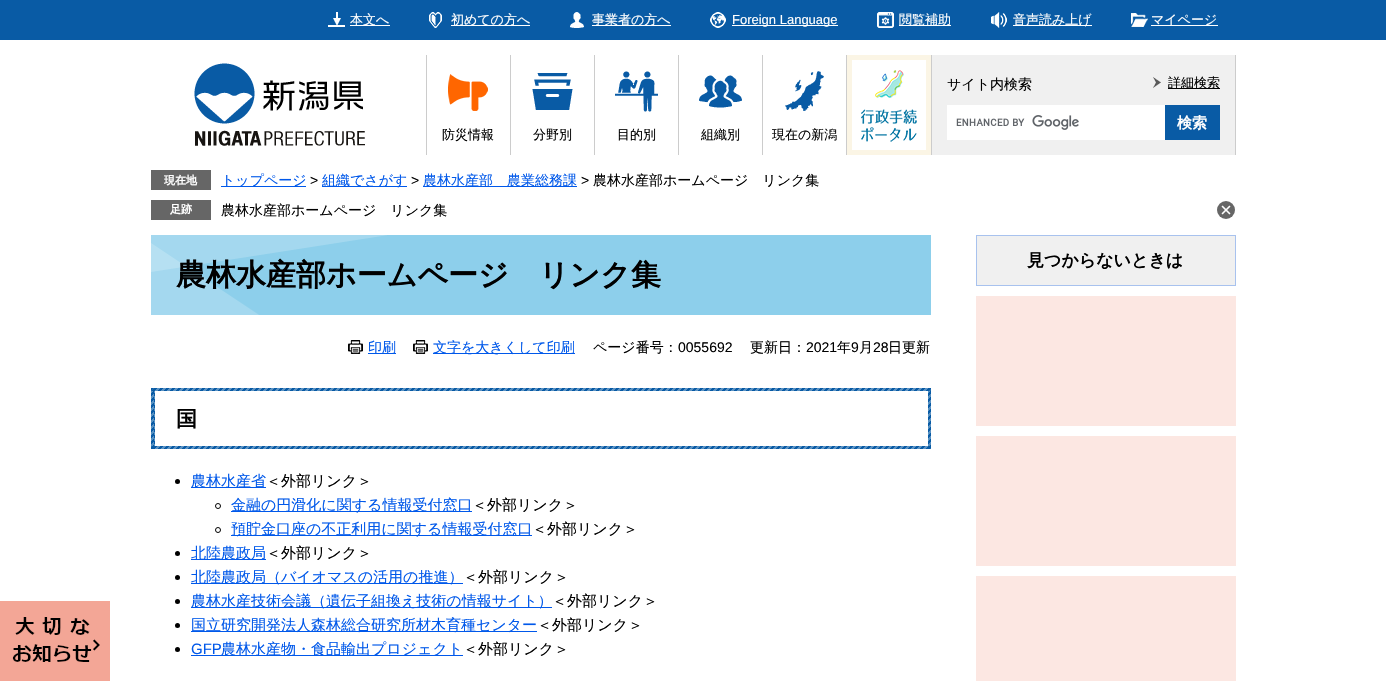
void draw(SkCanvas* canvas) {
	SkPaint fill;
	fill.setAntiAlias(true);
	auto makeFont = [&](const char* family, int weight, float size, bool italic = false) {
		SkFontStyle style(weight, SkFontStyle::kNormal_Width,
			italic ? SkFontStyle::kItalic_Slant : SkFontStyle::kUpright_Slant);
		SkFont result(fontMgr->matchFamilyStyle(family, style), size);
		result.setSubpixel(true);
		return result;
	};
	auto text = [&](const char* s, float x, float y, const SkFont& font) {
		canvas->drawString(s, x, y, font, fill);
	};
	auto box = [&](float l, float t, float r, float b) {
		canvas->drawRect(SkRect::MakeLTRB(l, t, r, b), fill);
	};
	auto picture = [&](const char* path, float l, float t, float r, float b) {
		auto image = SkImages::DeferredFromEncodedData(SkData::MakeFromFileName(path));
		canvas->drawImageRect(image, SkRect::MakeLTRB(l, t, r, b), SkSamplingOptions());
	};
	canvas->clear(0xFFFFFFFF);
	fill.setColor(0xFF095BA5);
	box(0, 0, 1386, 40);
	picture("image0.png", 328, 12, 345, 27);
	fill.setColor(0xFFFFFFFF);
	box(350, 25, 390, 26);
	picture("image1.png", 429, 12, 442, 28);
	box(451, 25, 530, 26);
	picture("image2.png", 570, 12, 584, 28);
	box(592, 25, 671, 26);
	picture("image3.png", 710, 12, 726, 28);
	box(732, 25, 838, 26);
	picture("image4.png", 877, 12, 894, 28);
	box(899, 25, 951, 26);
	picture("image5.png", 991, 12, 1007, 28);
	box(1013, 25, 1092, 26);
	picture("image6.png", 1131, 13, 1148, 27);
	box(1151, 25, 1218, 26);
	picture("image7.png", 194, 63, 365, 146);
	fill.setColor(0xFFF0F0F0);
	box(932, 55, 1235, 155);
	fill.setColor(0xFFCCCCCC);
	box(1235, 55, 1236, 155);
	box(931, 55, 932, 155);
	picture("image8.png", 1153, 77, 1161, 88);
	fill.setColor(0xFF000000);
	box(1168, 88, 1220, 89);
	fill.setColor(0xFFFFFFFF);
	box(947, 105, 1165, 140);
	picture("image9.png", 956, 115, 1079, 130);
	fill.setColor(0xFF095BA5);
	box(1165, 105, 1220, 140);
	fill.setColor(0xFFCCCCCC);
	box(426, 55, 427, 155);
	picture("image10.png", 448, 74, 488, 111);
	box(510, 55, 511, 155);
	picture("image11.png", 532, 73, 573, 110);
	box(594, 55, 595, 155);
	picture("image12.png", 615, 71, 658, 112);
	box(678, 55, 679, 155);
	picture("image13.png", 699, 75, 742, 108);
	box(762, 55, 763, 155);
	picture("image14.png", 785, 71, 824, 111);
	box(846, 55, 847, 155);
	fill.setColor(0xFFFBF5E5);
	box(847, 55, 931, 155);
	picture("image15.png", 852, 60, 926, 150);
	fill.setColor(0xFF666666);
	box(151, 170, 211, 190);
	fill.setColor(0xFF0058EA);
	box(221, 186, 306, 187);
	box(322, 186, 407, 187);
	box(423, 186, 577, 187);
	fill.setColor(0xFF666666);
	box(151, 200, 211, 220);
	canvas->drawCircle(1226, 210, 9, fill);
	picture("image16.png", 1221, 205, 1231, 215);
	picture("image17.png", 0, 601, 110, 681);
	picture("image18.png", 93, 639, 100, 651);
	fill.setColor(0xFF8DCFEB);
	box(151, 235, 931, 315);
	picture("image19.png", 151, 235, 387, 315);
	picture("image20.png", 348, 340, 363, 354);
	fill.setColor(0xFF0058EA);
	box(368, 353, 396, 354);
	picture("image20.png", 413, 340, 428, 354);
	box(433, 353, 575, 354);
	picture("image21.png", 151, 388, 931, 449);
	fill.setColor(0xFF000000);
	canvas->drawCircle(177.5f, 481.5f, 2.5f, fill);
	fill.setColor(0xFF0058EA);
	box(191, 487, 266, 488);
	fill.setStyle(SkPaint::kStroke_Style);
	fill.setStrokeWidth(1);
	fill.setColor(0xFF000000);
	canvas->drawCircle(218, 506, 2.5f, fill);
	fill.setStyle(SkPaint::kFill_Style);
	fill.setColor(0xFF0058EA);
	box(231, 511, 472, 512);
	fill.setStyle(SkPaint::kStroke_Style);
	fill.setColor(0xFF000000);
	canvas->drawCircle(218, 530, 2.5f, fill);
	fill.setStyle(SkPaint::kFill_Style);
	fill.setColor(0xFF0058EA);
	box(231, 535, 532, 536);
	fill.setColor(0xFF000000);
	canvas->drawCircle(177.5f, 553.5f, 2.5f, fill);
	fill.setColor(0xFF0058EA);
	box(191, 559, 266, 560);
	fill.setColor(0xFF000000);
	canvas->drawCircle(177.5f, 577.5f, 2.5f, fill);
	fill.setColor(0xFF0058EA);
	box(191, 583, 463, 584);
	fill.setColor(0xFF000000);
	canvas->drawCircle(177.5f, 601.5f, 2.5f, fill);
	fill.setColor(0xFF0058EA);
	box(191, 607, 552, 608);
	fill.setColor(0xFF000000);
	canvas->drawCircle(177.5f, 625.5f, 2.5f, fill);
	fill.setColor(0xFF0058EA);
	box(191, 631, 537, 632);
	fill.setColor(0xFF000000);
	canvas->drawCircle(177.5f, 649.5f, 2.5f, fill);
	fill.setColor(0xFF0058EA);
	box(191, 655, 463, 656);
	fill.setColor(0xFFF0F0F0);
	canvas->drawRect(SkRect::MakeLTRB(976.5f, 235.5f, 1235.5f, 285.5f), fill);
	fill.setStyle(SkPaint::kStroke_Style);
	fill.setColor(0xFFA8C2EE);
	canvas->drawRect(SkRect::MakeLTRB(976.5f, 235.5f, 1235.5f, 285.5f), fill);
	fill.setStyle(SkPaint::kFill_Style);
	fill.setColor(0xFFFCE7E2);
	box(976, 296, 1236, 426);
	box(976, 436, 1236, 566);
	box(976, 576, 1236, 681);
	auto font1 = makeFont("WenQuanYi Zen Hei", 500, 13);
	fill.setColor(0xFFFFFFFF);
	text("本文へ", 350, 24, font1);
	text("初めての方へ", 451, 24, font1);
	text("事業者の方へ", 592, 24, font1);
	auto font2 = makeFont("Liberation Sans", 400, 13);
	text("Foreign Language", 732, 24, font2);
	text("閲覧補助", 899, 24, font1);
	text("音声読み上げ", 1013, 24, font1);
	text("マイページ", 1151, 24, font1);
	fill.setColor(0xFF000000);
	text("詳細検索", 1168, 87, font1);
	auto font3 = makeFont("WenQuanYi Zen Hei", 500, 14);
	text("サイト内検索", 947, 89, font3);
	auto font4 = makeFont("WenQuanYi Zen Hei", 700, 15);
	fill.setColor(0xFFFFFFFF);
	text("検索", 1177, 128, font4);
	fill.setColor(0xFF000000);
	text("防災情報", 442, 139, font1);
	text("分野別", 533, 139, font1);
	text("目的別", 617, 139, font1);
	text("組織別", 701, 139, font1);
	text("現在の新潟", 772, 139, font1);
	auto font5 = makeFont("WenQuanYi Zen Hei", 700, 11);
	fill.setColor(0xFFFFFFFF);
	text("現在地", 164, 184, font5);
	fill.setColor(0xFF0058EA);
	text("トップページ", 221, 185, font3);
	auto font6 = makeFont("Liberation Sans", 400, 14);
	fill.setColor(0xFF000000);
	text(">", 310, 185, font6);
	fill.setColor(0xFF0058EA);
	text("組織でさがす", 322, 185, font3);
	fill.setColor(0xFF000000);
	text(">", 411, 185, font6);
	fill.setColor(0xFF0058EA);
	text("農林水産部　農業総務課", 423, 185, font3);
	fill.setColor(0xFF000000);
	text(">", 581, 185, font6);
	text("農林水産部ホームページ　リンク集", 593, 185, font3);
	fill.setColor(0xFFFFFFFF);
	text("足跡", 170, 213, font5);
	fill.setColor(0xFF000000);
	text("農林水産部ホームページ　リンク集", 221, 215, font3);
	auto font7 = makeFont("WenQuanYi Zen Hei", 700, 30);
	text("農林水産部ホームページ　リンク集", 176, 285, font7);
	fill.setColor(0xFF0058EA);
	text("印刷", 368, 352, font3);
	text("文字を大きくして印刷", 433, 352, font3);
	fill.setColor(0xFF000000);
	text("ページ番号：", 593, 352, font3);
	text("0055692", 678, 352, font6);
	text("更新日：", 750, 352, font3);
	text("2021", 806, 352, font6);
	text("年", 837, 352, font3);
	text("9", 851, 352, font6);
	text("月", 859, 352, font3);
	text("28", 873, 352, font6);
	text("日更新", 888, 352, font3);
	auto font8 = makeFont("WenQuanYi Zen Hei", 700, 21);
	text("国", 176, 426, font8);
	auto font9 = makeFont("WenQuanYi Zen Hei", 500, 15);
	fill.setColor(0xFF0058EA);
	text("農林水産省", 191, 486, font9);
	fill.setColor(0xFF000000);
	text("＜外部リンク＞", 266, 486, font9);
	fill.setColor(0xFF0058EA);
	text("金融の円滑化に関する情報受付窓口", 231, 510, font9);
	fill.setColor(0xFF000000);
	text("＜外部リンク＞", 472, 510, font9);
	fill.setColor(0xFF0058EA);
	text("預貯金口座の不正利用に関する情報受付窓口", 231, 534, font9);
	fill.setColor(0xFF000000);
	text("＜外部リンク＞", 532, 534, font9);
	fill.setColor(0xFF0058EA);
	text("北陸農政局", 191, 558, font9);
	fill.setColor(0xFF000000);
	text("＜外部リンク＞", 266, 558, font9);
	fill.setColor(0xFF0058EA);
	text("北陸農政局（バイオマスの活用の推進）", 191, 582, font9);
	fill.setColor(0xFF000000);
	text("＜外部リンク＞", 463, 582, font9);
	fill.setColor(0xFF0058EA);
	text("農林水産技術会議（遺伝子組換え技術の情報サイト）", 191, 606, font9);
	fill.setColor(0xFF000000);
	text("＜外部リンク＞", 552, 606, font9);
	fill.setColor(0xFF0058EA);
	text("国立研究開発法人森林総合研究所材木育種センター", 191, 630, font9);
	fill.setColor(0xFF000000);
	text("＜外部リンク＞", 537, 630, font9);
	auto font10 = makeFont("Liberation Sans", 400, 15);
	fill.setColor(0xFF0058EA);
	text("GFP", 191, 654, font10);
	text("農林水産物・食品輸出プロジェクト", 221, 654, font9);
	fill.setColor(0xFF000000);
	text("＜外部リンク＞", 463, 654, font9);
	auto font11 = makeFont("WenQuanYi Zen Hei", 700, 17);
	text("見つからないときは", 1027, 266, font11);
}
